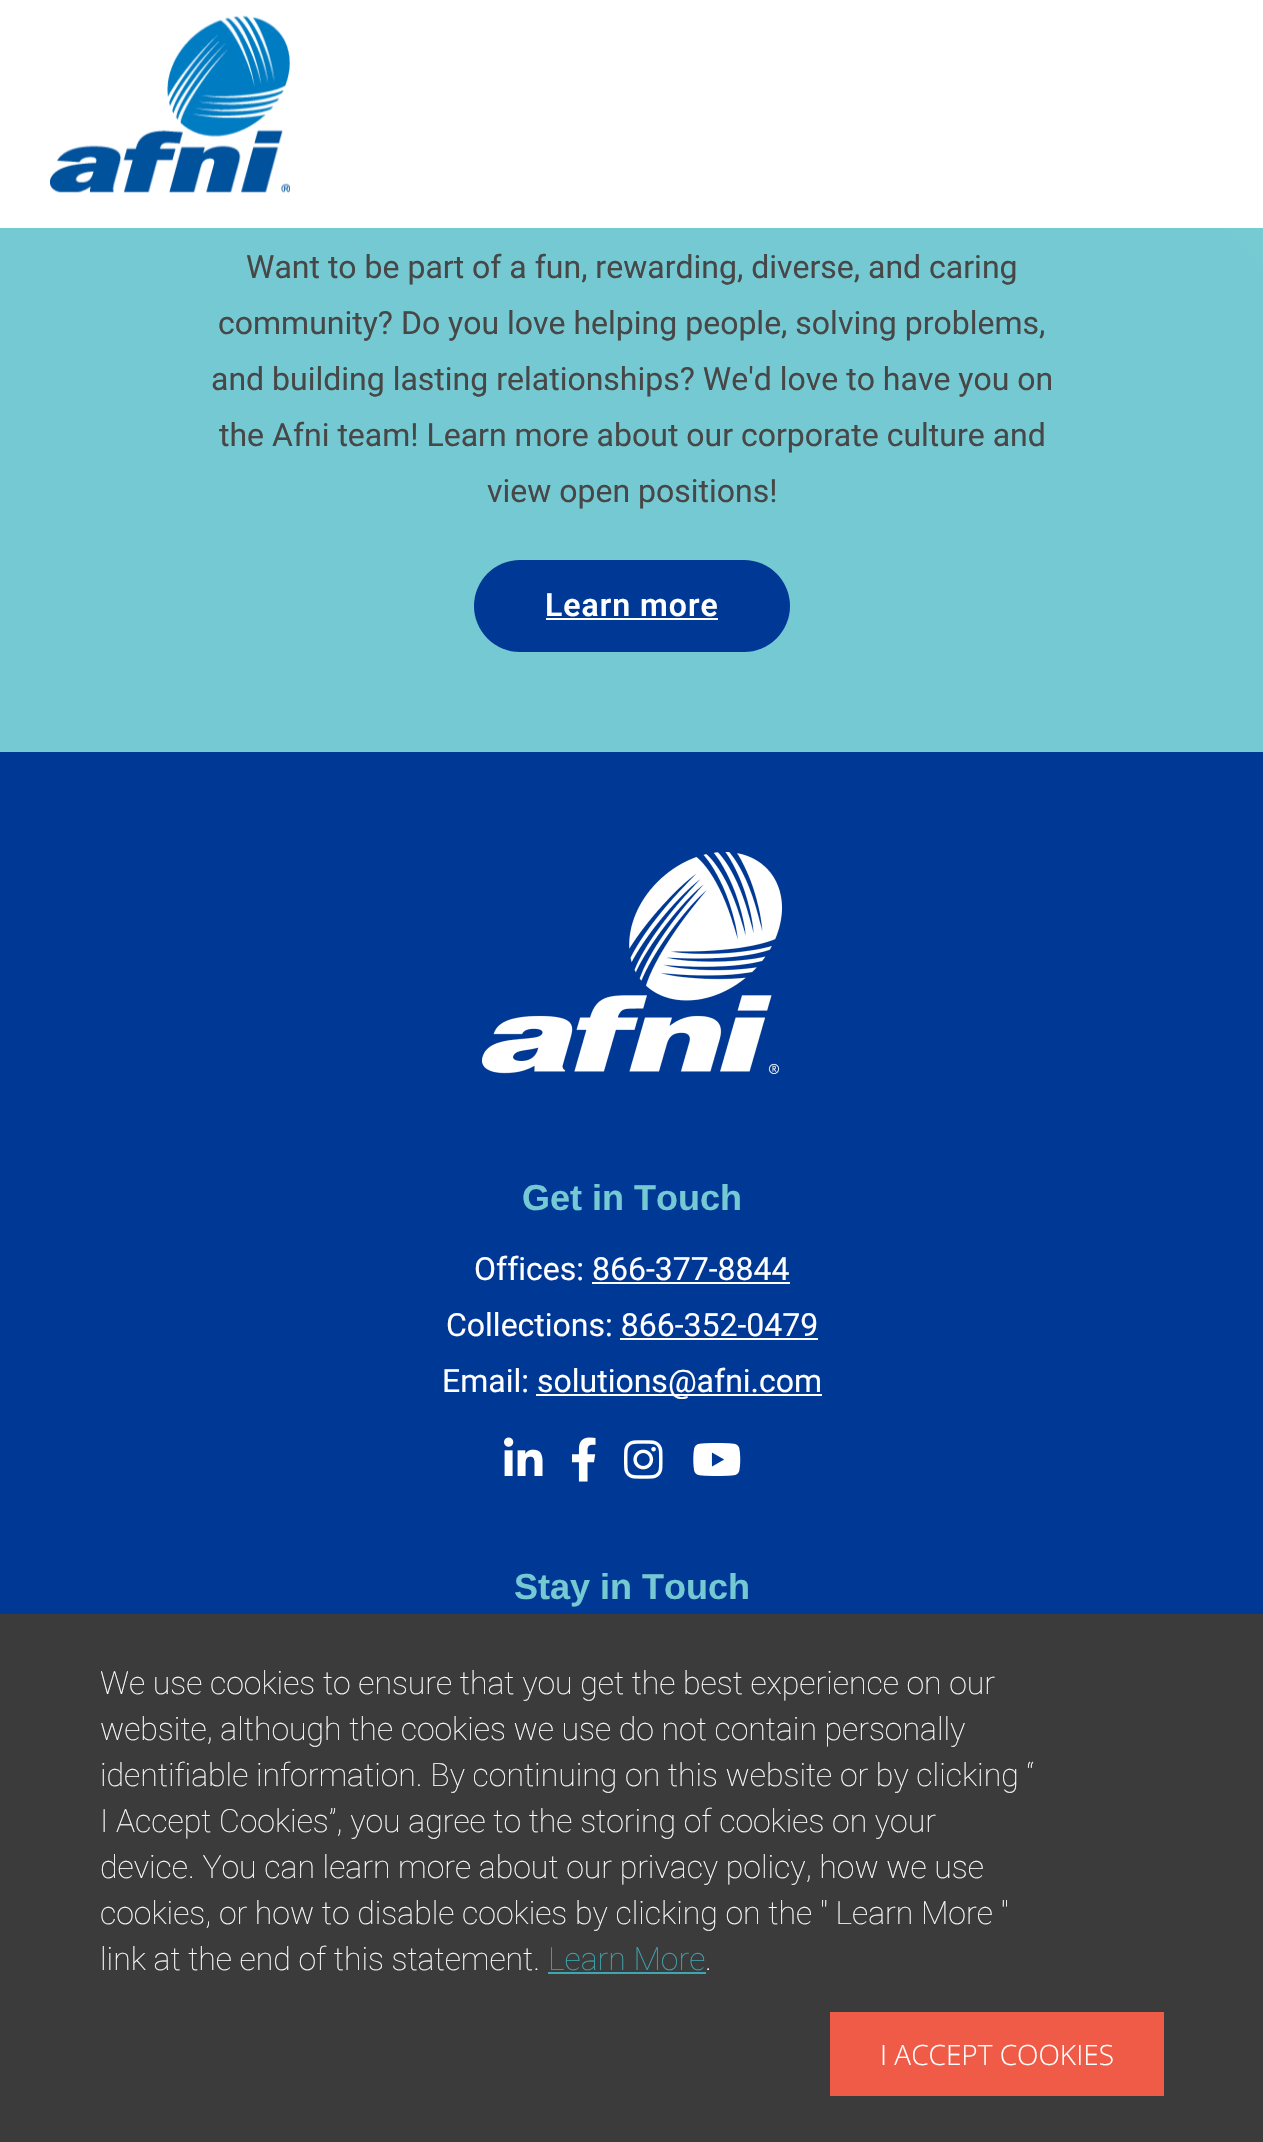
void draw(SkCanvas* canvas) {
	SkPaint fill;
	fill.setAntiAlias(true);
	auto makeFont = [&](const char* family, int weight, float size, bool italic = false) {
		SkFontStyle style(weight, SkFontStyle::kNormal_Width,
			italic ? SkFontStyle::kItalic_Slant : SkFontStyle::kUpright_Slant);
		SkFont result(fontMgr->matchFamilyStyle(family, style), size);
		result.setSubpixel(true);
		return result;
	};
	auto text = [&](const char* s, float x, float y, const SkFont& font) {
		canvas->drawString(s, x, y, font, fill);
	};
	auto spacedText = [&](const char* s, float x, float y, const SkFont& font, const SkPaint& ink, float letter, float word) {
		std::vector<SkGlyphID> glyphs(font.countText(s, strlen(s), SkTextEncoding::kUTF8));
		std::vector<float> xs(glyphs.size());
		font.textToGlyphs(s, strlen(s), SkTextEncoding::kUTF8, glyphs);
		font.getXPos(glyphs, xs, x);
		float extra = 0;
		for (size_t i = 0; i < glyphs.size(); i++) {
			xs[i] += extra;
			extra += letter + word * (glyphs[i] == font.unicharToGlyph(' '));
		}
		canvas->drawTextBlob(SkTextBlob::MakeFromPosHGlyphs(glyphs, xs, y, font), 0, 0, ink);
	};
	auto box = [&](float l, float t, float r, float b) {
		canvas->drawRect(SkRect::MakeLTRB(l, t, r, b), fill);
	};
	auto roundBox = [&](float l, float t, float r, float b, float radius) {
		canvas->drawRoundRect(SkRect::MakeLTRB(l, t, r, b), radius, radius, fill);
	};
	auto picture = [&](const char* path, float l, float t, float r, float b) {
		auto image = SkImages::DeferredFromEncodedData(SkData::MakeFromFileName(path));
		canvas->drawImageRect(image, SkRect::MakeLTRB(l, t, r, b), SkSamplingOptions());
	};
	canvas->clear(0xFFFFFFFF);
	picture("image0.png", 50, 15, 290, 193);
	{
		const SkColor colors[] = {0xFF76CAD1, 0xFF75C9D3};
		const float stops[] = {0.14f, 0.14f};
		const SkPoint ends[] = {{1140, -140}, {124, 876}};
		fill.setShader(SkGradientShader::MakeLinear(ends, colors, stops, 2, SkTileMode::kClamp));
		fill.setAlpha(255);
	}
	box(0, 228, 1263, 752);
	fill.setShader(nullptr);
	fill.setColor(0xFF003896);
	roundBox(474, 560, 790, 652, 46);
	fill.setColor(0xFFFFFFFF);
	box(546, 618, 718, 620);
	fill.setColor(0xFF003896);
	box(0, 752, 1263, 1614);
	picture("image1.png", 482, 852, 782, 1074);
	fill.setColor(0xFFFFFFFF);
	box(592, 1282, 790, 1284);
	box(620, 1338, 818, 1340);
	box(536, 1394, 822, 1396);
	picture("image2.png", 504, 1437, 543, 1476);
	picture("image3.png", 571, 1437, 596, 1482);
	picture("image4.png", 624, 1440, 663, 1479);
	picture("image5.png", 693, 1443, 741, 1476);
	fill.setColor(0xFF3B3B3B);
	box(0, 1614, 1263, 2142);
	fill.setColor(0xFF3FA5B1);
	box(548, 1972, 706, 1974);
	fill.setColor(0xFFF05B47);
	box(830, 2012, 1164, 2096);
	auto font1 = makeFont("Roboto", 400, 32);
	fill.setColor(0xFF474747);
	text("Want to be part of a fun, rewarding, diverse, and caring", 246, 278, font1);
	text("community? Do you love helping people, solving problems,", 218, 334, font1);
	text("and building lasting relationships? We'd love to have you on", 211, 390, font1);
	text("the Afni team! Learn more about our corporate culture and", 219, 446, font1);
	text("view open positions!", 487, 502, font1);
	auto font2 = makeFont("Roboto", 600, 32);
	fill.setColor(0xFFFFFFFF);
	spacedText("Learn more", 545, 616, font2, fill, 1, 0);
	auto font3 = makeFont("Liberation Sans", 700, 36);
	fill.setColor(0xFF75C9D3);
	text("Get in Touch", 522, 1210, font3);
	fill.setColor(0xFFFFFFFF);
	text("Offices: 866-377-8844", 474, 1280, font1);
	text("Collections: 866-352-0479", 446, 1336, font1);
	text("Email:", 442, 1392, font1);
	text("solutions@afni.com", 537, 1392, font1);
	fill.setColor(0xFF75C9D3);
	text("Stay in Touch", 514, 1599, font3);
	auto font4 = makeFont("Roboto", 100, 32);
	fill.setColor(0xFFFFFFFF);
	text("We use cookies to ensure that you get the best experience on our", 100, 1694, font4);
	text("website, although the cookies we use do not contain personally", 100, 1740, font4);
	text("identifiable information. By continuing on this website or by clicking “", 100, 1786, font4);
	text("I Accept Cookies”, you agree to the storing of cookies on your", 100, 1832, font4);
	text("device. You can learn more about our privacy policy, how we use", 100, 1878, font4);
	text("cookies, or how to disable cookies by clicking on the \" Learn More \"", 100, 1924, font4);
	text("link at the end of this statement.", 100, 1970, font4);
	fill.setColor(0xFF3FA5B1);
	text("Learn More", 548, 1970, font4);
	fill.setColor(0xFFFFFFFF);
	text(".", 705, 1970, font4);
	auto font5 = makeFont("Open Sans", 300, 28);
	text("I ACCEPT COOKIES", 880, 2065, font5);
}
